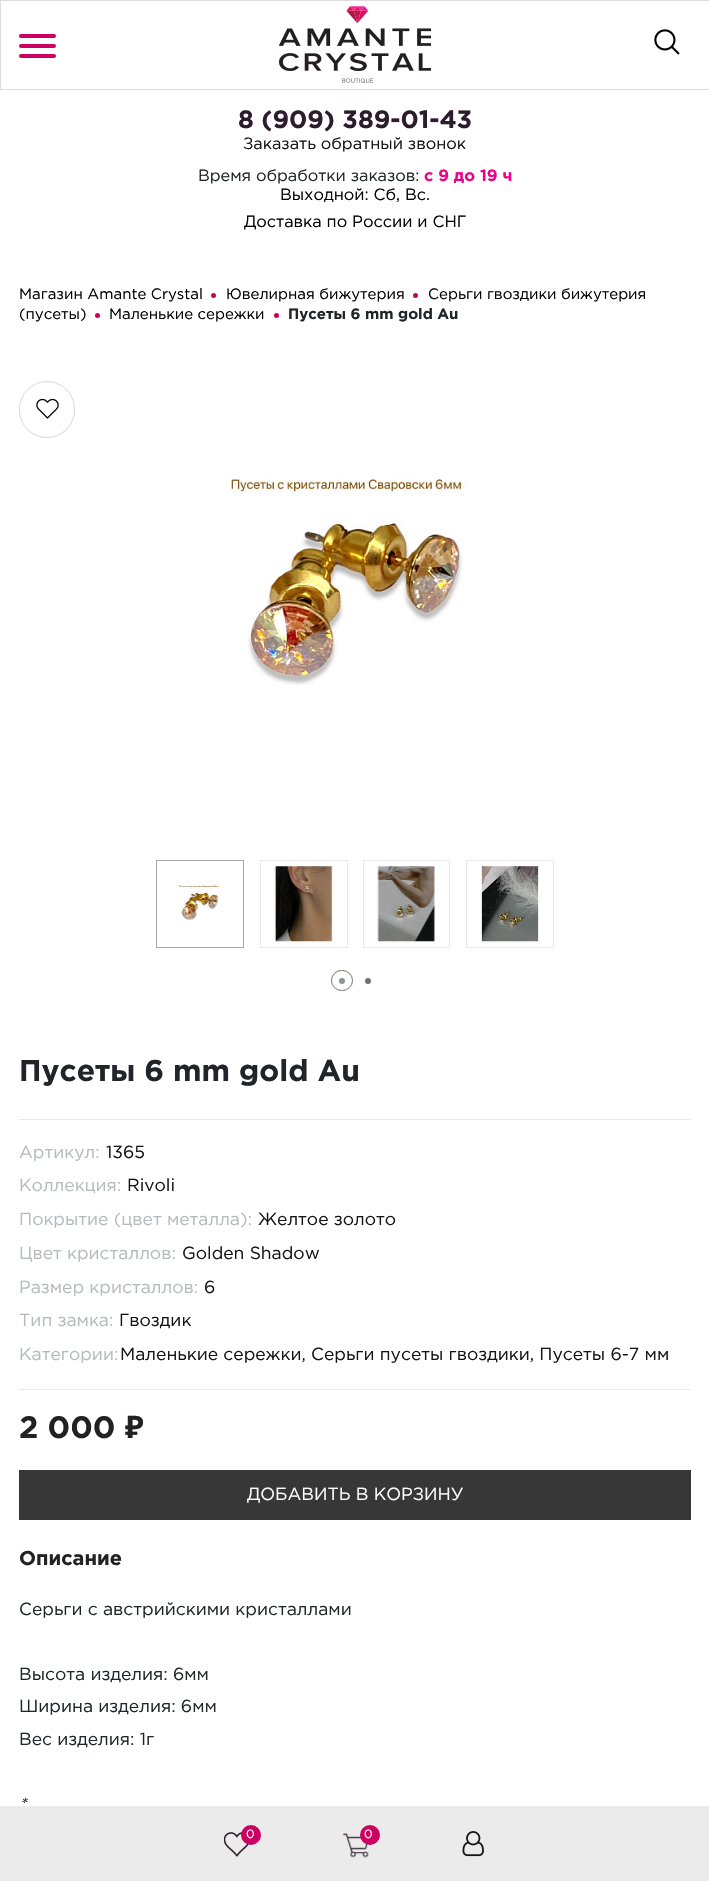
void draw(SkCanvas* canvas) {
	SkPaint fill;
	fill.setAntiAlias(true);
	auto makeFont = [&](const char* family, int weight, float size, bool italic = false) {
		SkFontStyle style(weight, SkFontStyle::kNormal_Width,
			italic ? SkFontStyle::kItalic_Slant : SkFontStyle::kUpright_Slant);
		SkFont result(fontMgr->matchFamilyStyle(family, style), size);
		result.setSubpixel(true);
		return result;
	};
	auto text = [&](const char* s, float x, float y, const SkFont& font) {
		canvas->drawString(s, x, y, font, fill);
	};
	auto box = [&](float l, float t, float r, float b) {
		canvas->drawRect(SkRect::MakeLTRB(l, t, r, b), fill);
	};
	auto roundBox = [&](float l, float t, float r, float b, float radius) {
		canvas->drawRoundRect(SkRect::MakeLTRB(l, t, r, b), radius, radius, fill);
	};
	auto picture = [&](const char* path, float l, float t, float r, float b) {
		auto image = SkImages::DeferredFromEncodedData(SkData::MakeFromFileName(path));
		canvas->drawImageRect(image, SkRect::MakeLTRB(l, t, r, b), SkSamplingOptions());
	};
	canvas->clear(0xFFFFFFFF);
	fill.setColor(0xFFCC0060);
	canvas->drawCircle(97.5f, 315.5f, 2.5f, fill);
	canvas->drawCircle(213.5f, 295.5f, 2.5f, fill);
	canvas->drawCircle(415.5f, 295.5f, 2.5f, fill);
	canvas->drawCircle(276.5f, 315.5f, 2.5f, fill);
	fill.setStyle(SkPaint::kStroke_Style);
	fill.setStrokeWidth(1);
	fill.setColor(0xFFD7D7D7);
	canvas->drawRoundRect(SkRect::MakeLTRB(19.5f, 381.5f, 74.5f, 437.5f), 27.5f, 27.5f, fill);
	picture("image0.png", 36, 398, 59, 419);
	picture("image1.png", 227, 478, 466, 685);
	fill.setColor(0xFFA7A7A7);
	canvas->drawRect(SkRect::MakeLTRB(156.5f, 860.5f, 243.5f, 947.5f), fill);
	picture("image2.png", 178, 885, 220, 921);
	fill.setColor(0xFFE8E8E8);
	canvas->drawRect(SkRect::MakeLTRB(260.5f, 860.5f, 347.5f, 947.5f), fill);
	picture("image3.png", 274, 866, 333, 942);
	canvas->drawRect(SkRect::MakeLTRB(363.5f, 860.5f, 449.5f, 947.5f), fill);
	picture("image4.png", 377, 866, 435, 942);
	canvas->drawRect(SkRect::MakeLTRB(466.5f, 860.5f, 553.5f, 947.5f), fill);
	picture("image5.png", 481, 866, 539, 942);
	fill.setColor(0xFF6C7567);
	canvas->drawRoundRect(SkRect::MakeLTRB(331.5f, 970.5f, 352.5f, 990.5f), 10, 10, fill);
	fill.setStyle(SkPaint::kFill_Style);
	fill.setColor(0xFF869791);
	canvas->drawCircle(342, 981, 3, fill);
	fill.setColor(0xFF6C7567);
	canvas->drawCircle(368, 981, 3, fill);
	fill.setColor(0xFFE9E9E9);
	box(19, 1119, 691, 1120);
	box(19, 1389, 691, 1390);
	fill.setColor(0xFF373737);
	box(19, 1470, 691, 1520);
	fill.setStyle(SkPaint::kStroke_Style);
	fill.setColor(0xFFDDDDDD);
	canvas->drawRect(SkRect::MakeLTRB(0.5f, 0.5f, 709.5f, 89.5f), fill);
	picture("image6.png", 654, 29, 680, 55);
	fill.setStyle(SkPaint::kFill_Style);
	fill.setColor(0xFFCC0060);
	roundBox(19, 44, 56, 48, 2);
	roundBox(19, 34, 56, 38, 2);
	roundBox(19, 54, 56, 58, 2);
	picture("image7.png", 279, 6, 431, 83);
	fill.setColor(0xFFEBEBEB);
	box(0, 1806, 709, 1881);
	picture("image8.png", 224, 1832, 249, 1857);
	fill.setColor(0xFFCC0060);
	canvas->drawCircle(251, 1835, 10, fill);
	picture("image9.png", 343, 1833, 369, 1858);
	canvas->drawCircle(370, 1835, 10, fill);
	picture("image10.png", 462, 1831, 484, 1857);
	auto font1 = makeFont("Gotham", 700, 25);
	fill.setColor(0xFF2D1C2E);
	text("8 (909) 389-01-43", 238, 128, font1);
	auto font2 = makeFont("Gotham", 400, 16.25f);
	fill.setColor(0xFF151414);
	text("Заказать обратный звонок", 243, 149, font2);
	fill.setColor(0xFF212529);
	text("Время обработки заказов:", 198, 181, font2);
	auto font3 = makeFont("Gotham", 700, 16.25f);
	fill.setColor(0xFFED008C);
	text("c 9 до 19 ч", 424, 181, font3);
	fill.setColor(0xFF000000);
	text("Выходной: Сб, Вс.", 280, 200, font2);
	text("Доставка по России и СНГ", 244, 227, font2);
	auto font4 = makeFont("Gotham", 400, 15);
	text("Серьги гвоздики бижутерия", 428, 299, font4);
	text("(пусеты)", 19, 319, font4);
	text("Магазин Amante Crystal", 19, 299, font4);
	text("Ювелирная бижутерия", 226, 299, font4);
	text("Маленькие сережки", 109, 319, font4);
	auto font5 = makeFont("Gotham", 700, 15);
	fill.setColor(0xFF212529);
	text("Пусеты 6 mm gold Au", 288, 319, font5);
	auto font6 = makeFont("Gotham", 700, 30);
	text("Пусеты 6 mm gold Au", 19, 1081, font6);
	auto font7 = makeFont("Gotham", 400, 17.5f);
	fill.setColor(0xFFB6BABE);
	text("Артикул:", 19, 1158, font7);
	fill.setColor(0xFF151414);
	text("1365", 106, 1158, font7);
	fill.setColor(0xFFB6BABE);
	text("Коллекция:", 19, 1191, font7);
	fill.setColor(0xFF151414);
	text("Rivoli", 127, 1191, font7);
	fill.setColor(0xFFB6BABE);
	text("Покрытие (цвет металла):", 19, 1225, font7);
	fill.setColor(0xFF151414);
	text("Желтое золото", 258, 1225, font7);
	fill.setColor(0xFFB6BABE);
	text("Цвет кристаллов:", 19, 1259, font7);
	fill.setColor(0xFF151414);
	text("Golden Shadow", 182, 1259, font7);
	fill.setColor(0xFFB6BABE);
	text("Размер кристаллов:", 19, 1293, font7);
	fill.setColor(0xFF151414);
	text("6", 204, 1293, font7);
	fill.setColor(0xFFB6BABE);
	text("Тип замка:", 19, 1326, font7);
	fill.setColor(0xFF151414);
	text("Гвоздик", 119, 1326, font7);
	fill.setColor(0xFFB6BABE);
	text("Категории:", 19, 1360, font7);
	fill.setColor(0xFF151414);
	text("Маленькие сережки, Серьги пусеты гвоздики, Пусеты 6-7 мм", 120, 1360, font7);
	auto font8 = makeFont("Gotham", 700, 31);
	fill.setColor(0xFF232222);
	text("2 000", 19, 1438, font8);
	auto font9 = makeFont("Noto Sans", 700, 31);
	text("₽", 125, 1438, font9);
	fill.setColor(0xFFFFFFFF);
	text("ДОБАВИТЬ В КОРЗИНУ", 247, 1500, font7);
	auto font10 = makeFont("Gotham", 700, 20);
	fill.setColor(0xFF232222);
	text("Описание", 19, 1565, font10);
	fill.setColor(0xFF212529);
	text("Серьги с австрийскими кристаллами", 19, 1615, font7);
	text("Высота изделия: 6мм", 19, 1680, font7);
	text("Ширина изделия: 6мм", 19, 1712, font7);
	text("Вес изделия: 1г", 19, 1745, font7);
	auto font11 = makeFont("Gotham", 400, 17.5f, true);
	text("*", 19, 1810, font11);
	auto font12 = makeFont("Gotham", 400, 12);
	fill.setColor(0xFFFFFFFF);
	text("0", 246, 1838, font12);
	text("0", 364, 1838, font12);
}
